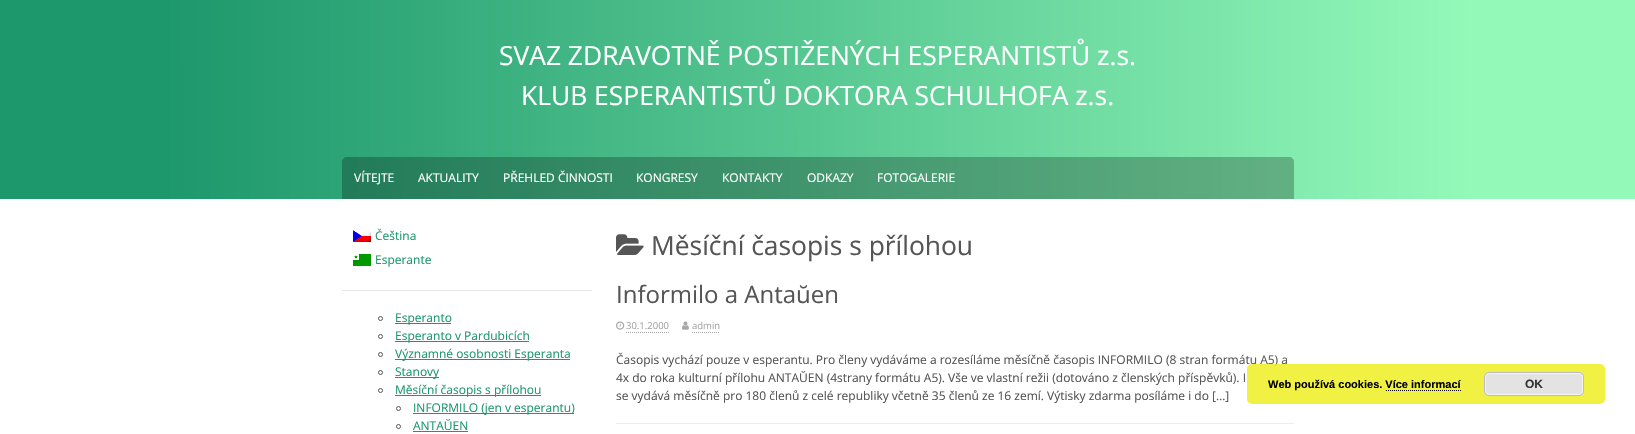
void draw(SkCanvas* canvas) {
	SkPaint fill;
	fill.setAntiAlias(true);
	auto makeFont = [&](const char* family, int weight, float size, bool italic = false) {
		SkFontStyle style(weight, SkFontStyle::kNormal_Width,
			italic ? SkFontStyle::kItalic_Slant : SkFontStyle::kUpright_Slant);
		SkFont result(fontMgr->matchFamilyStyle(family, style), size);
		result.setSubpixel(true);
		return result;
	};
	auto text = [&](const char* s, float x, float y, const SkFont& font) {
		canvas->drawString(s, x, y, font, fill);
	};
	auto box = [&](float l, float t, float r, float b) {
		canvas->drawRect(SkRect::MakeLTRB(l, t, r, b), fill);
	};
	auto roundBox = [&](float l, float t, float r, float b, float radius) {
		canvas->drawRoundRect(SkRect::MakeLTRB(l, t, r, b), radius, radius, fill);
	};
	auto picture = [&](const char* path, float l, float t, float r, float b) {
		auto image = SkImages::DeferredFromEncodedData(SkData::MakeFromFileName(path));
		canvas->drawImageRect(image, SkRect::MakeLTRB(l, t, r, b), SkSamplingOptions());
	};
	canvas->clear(0xFFFFFFFF);
	{
		const SkColor colors[] = {0xFF1D976C, 0xFF93F9B9};
		const float stops[] = {0.1f, 0.9f};
		const SkPoint ends[] = {{0, 100}, {1635, 99}};
		fill.setShader(SkGradientShader::MakeLinear(ends, colors, stops, 2, SkTileMode::kClamp));
		fill.setAlpha(255);
	}
	box(0, 0, 1635, 199);
	fill.setShader(nullptr);
	fill.setColor(0x40000000);
	canvas->drawPath(SkPathBuilder().moveTo(347, 157).lineTo(1289, 157).cubicTo(1292, 157, 1294, 159, 1294, 162).lineTo(1294, 199).lineTo(342, 199).lineTo(342, 162).cubicTo(342, 159, 344, 157, 347, 157).close().detach(), fill);
	fill.setColor(0xFFE4E4E4);
	box(342, 290, 592, 291);
	picture("image0.png", 353, 230, 371, 242);
	picture("image1.png", 353, 254, 371, 266);
	fill.setStyle(SkPaint::kStroke_Style);
	fill.setStrokeWidth(1);
	fill.setColor(0xFF555555);
	canvas->drawCircle(380.5f, 318.5f, 2, fill);
	fill.setStyle(SkPaint::kFill_Style);
	fill.setColor(0xFF1D976C);
	box(395, 323, 451, 324);
	fill.setStyle(SkPaint::kStroke_Style);
	fill.setColor(0xFF555555);
	canvas->drawCircle(380.5f, 336.5f, 2, fill);
	fill.setStyle(SkPaint::kFill_Style);
	fill.setColor(0xFF1D976C);
	box(395, 341, 529, 342);
	fill.setStyle(SkPaint::kStroke_Style);
	fill.setColor(0xFF555555);
	canvas->drawCircle(380.5f, 354.5f, 2, fill);
	fill.setStyle(SkPaint::kFill_Style);
	fill.setColor(0xFF1D976C);
	box(395, 359, 570, 360);
	fill.setStyle(SkPaint::kStroke_Style);
	fill.setColor(0xFF555555);
	canvas->drawCircle(380.5f, 372.5f, 2, fill);
	fill.setStyle(SkPaint::kFill_Style);
	fill.setColor(0xFF1D976C);
	box(395, 377, 439, 378);
	fill.setStyle(SkPaint::kStroke_Style);
	fill.setColor(0xFF555555);
	canvas->drawCircle(380.5f, 390.5f, 2, fill);
	fill.setStyle(SkPaint::kFill_Style);
	fill.setColor(0xFF1D976C);
	box(395, 395, 541, 396);
	fill.setStyle(SkPaint::kStroke_Style);
	fill.setColor(0xFF555555);
	canvas->drawCircle(398.5f, 408.5f, 2, fill);
	fill.setStyle(SkPaint::kFill_Style);
	fill.setColor(0xFF1D976C);
	box(413, 413, 574, 414);
	fill.setStyle(SkPaint::kStroke_Style);
	fill.setColor(0xFF555555);
	canvas->drawCircle(398.5f, 426.5f, 2, fill);
	fill.setStyle(SkPaint::kFill_Style);
	fill.setColor(0xFF1D976C);
	box(413, 431, 468, 432);
	picture("image2.png", 616, 234, 644, 255);
	fill.setColor(0xFFEDEDED);
	box(616, 423, 1294, 424);
	picture("image3.png", 616, 321, 625, 330);
	fill.setStyle(SkPaint::kStroke_Style);
	fill.setColor(0xFFA7A7A7);
	fill.setPathEffect(SkDashPathEffect::Make({{1, 1}}, 0));
	canvas->drawPath(SkPathBuilder().moveTo(626, 332.5f).lineTo(670, 332.5f).detach(), fill);
	fill.setPathEffect(nullptr);
	picture("image4.png", 682, 321, 689, 330);
	fill.setPathEffect(SkDashPathEffect::Make({{1, 1}}, 0));
	canvas->drawPath(SkPathBuilder().moveTo(692, 332.5f).lineTo(720, 332.5f).detach(), fill);
	fill.setPathEffect(nullptr);
	auto font1 = makeFont("Open Sans", 400, 26.4f);
	fill.setStyle(SkPaint::kFill_Style);
	fill.setColor(0xFFFFFFFF);
	text("SVAZ ZDRAVOTNĚ POSTIŽENÝCH ESPERANTISTŮ z.s.", 499, 65, font1);
	text("KLUB ESPERANTISTŮ DOKTORA SCHULHOFA z.s.", 521, 105, font1);
	auto font2 = makeFont("Open Sans", 400, 12);
	text("VÍTEJTE", 354, 182, font2);
	text("AKTUALITY", 418, 182, font2);
	text("PŘEHLED ČINNOSTI", 503, 182, font2);
	text("KONGRESY", 636, 182, font2);
	text("KONTAKTY", 722, 182, font2);
	text("ODKAZY", 807, 182, font2);
	text("FOTOGALERIE", 877, 182, font2);
	fill.setColor(0xFF1D976C);
	text("Čeština", 375, 240, font2);
	text("Esperante", 375, 264, font2);
	text("Esperanto", 395, 322, font2);
	text("Esperanto v Pardubicích", 395, 340, font2);
	text("Významné osobnosti Esperanta", 395, 358, font2);
	text("Stanovy", 395, 376, font2);
	text("Měsíční časopis s přílohou", 395, 394, font2);
	text("INFORMILO (jen v esperantu)", 413, 412, font2);
	text("ANTAŬEN", 413, 430, font2);
	fill.setColor(0xFF555555);
	text("Měsíční časopis s přílohou", 651, 255, font1);
	auto font3 = makeFont("Open Sans", 400, 24);
	text("Informilo a Antaŭen", 616, 303, font3);
	auto font4 = makeFont("Open Sans", 400, 9.5f);
	fill.setColor(0xFFA7A7A7);
	text("30.1.2000", 626, 329, font4);
	text("admin", 692, 329, font4);
	fill.setColor(0xFF555555);
	text("Časopis vychází pouze v esperantu. Pro členy vydáváme a rozesíláme měsíčně časopis INFORMILO (8 stran formátu A5) a", 616, 364, font2);
	text("4x do roka kulturní přílohu ANTAŬEN (4strany formátu A5). Vše ve vlastní režii (dotováno z členských příspěvků). I", 616, 382, font2);
	text("se vydává měsíčně pro 180 členů z celé republiky včetně 35 členů ze 16 zemí. Výtisky zdarma posíláme i do […]", 616, 400, font2);
	fill.setColor(0xD9EEEE22);
	roundBox(1247, 364, 1605, 404, 5);
	auto font5 = makeFont("Liberation Sans", 700, 11);
	fill.setColor(0xFF000000);
	text("Web používá cookies. Více informací", 1268, 388, font5);
	fill.setColor(0xFFE3E3E3);
	roundBox(1484, 372, 1584, 396, 5);
	fill.setStyle(SkPaint::kStroke_Style);
	fill.setColor(0xFFF6F6F6);
	canvas->drawRoundRect(SkRect::MakeLTRB(1485.5f, 373.5f, 1582.5f, 394.5f), 3.5f, 3.5f, fill);
	fill.setColor(0xFFBBBBBB);
	canvas->drawRoundRect(SkRect::MakeLTRB(1484.5f, 372.5f, 1583.5f, 395.5f), 4.5f, 4.5f, fill);
	auto font6 = makeFont("Liberation Sans", 700, 12);
	fill.setStyle(SkPaint::kFill_Style);
	fill.setColor(0xFF333333);
	text("OK", 1525, 388, font6);
	fill.setStyle(SkPaint::kStroke_Style);
	fill.setColor(0xFF000000);
	fill.setPathEffect(SkDashPathEffect::Make({{1, 1}}, 0));
	canvas->drawPath(SkPathBuilder().moveTo(1386, 390.5f).lineTo(1461, 390.5f).detach(), fill);
	fill.setPathEffect(nullptr);
}
